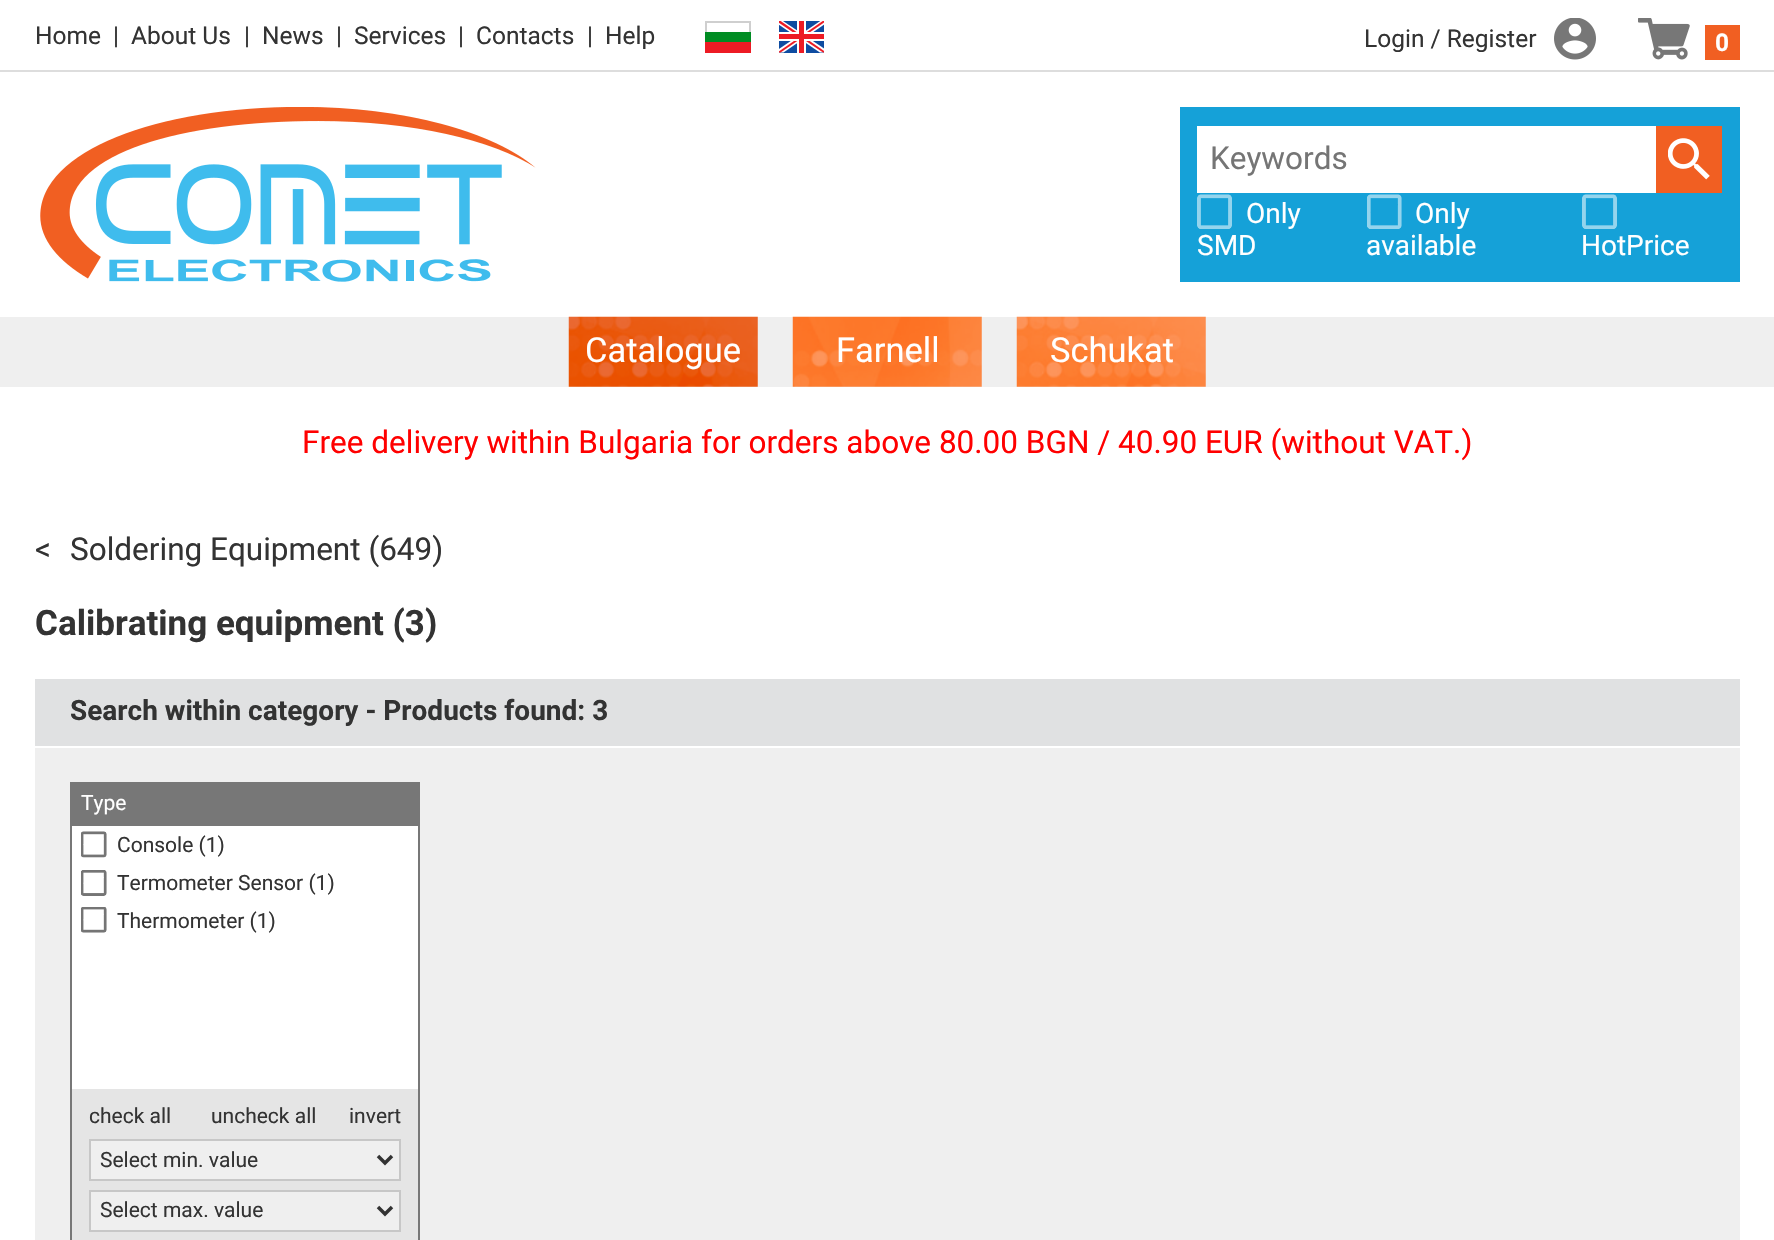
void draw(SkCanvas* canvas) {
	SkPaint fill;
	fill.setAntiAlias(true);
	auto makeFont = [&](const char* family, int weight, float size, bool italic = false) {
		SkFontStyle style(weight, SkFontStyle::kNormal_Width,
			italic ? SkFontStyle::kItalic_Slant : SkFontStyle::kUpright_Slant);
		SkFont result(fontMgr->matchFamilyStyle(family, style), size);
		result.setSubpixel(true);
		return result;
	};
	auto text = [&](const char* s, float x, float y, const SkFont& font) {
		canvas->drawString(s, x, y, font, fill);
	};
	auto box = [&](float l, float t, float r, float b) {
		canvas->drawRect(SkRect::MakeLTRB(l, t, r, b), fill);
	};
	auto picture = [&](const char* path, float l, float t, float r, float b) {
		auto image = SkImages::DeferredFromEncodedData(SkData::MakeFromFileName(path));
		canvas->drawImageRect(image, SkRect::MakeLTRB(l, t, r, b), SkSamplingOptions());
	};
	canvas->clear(0xFFFFFFFF);
	fill.setColor(0xFFDDDDDD);
	box(0, 70, 1774, 72);
	fill.setStyle(SkPaint::kStroke_Style);
	fill.setStrokeWidth(2);
	fill.setColor(0xFFCFCFCF);
	canvas->drawRect(SkRect::MakeLTRB(706, 22, 750, 52), fill);
	fill.setStyle(SkPaint::kFill_Style);
	fill.setColor(0xFFED1B24);
	box(705, 42, 751, 53);
	fill.setColor(0xFF008C23);
	box(705, 32, 751, 42);
	picture("image0.png", 779, 21, 824, 53);
	picture("image1.png", 1554, 18, 1596, 60);
	fill.setColor(0xFFF15F22);
	box(1705, 25, 1740, 60);
	picture("image2.png", 1638, 18, 1690, 60);
	picture("image3.png", 40, 107, 536, 282);
	fill.setColor(0xFF15A1D8);
	box(1180, 107, 1740, 282);
	fill.setColor(0xFFFFFFFF);
	box(1197, 126, 1656, 193);
	fill.setColor(0xFFF15F22);
	box(1656, 126, 1722, 193);
	picture("image4.png", 1668, 138, 1710, 180);
	picture("image5.png", 1197, 194, 1232, 229);
	picture("image6.png", 1367, 194, 1402, 229);
	picture("image5.png", 1582, 194, 1617, 229);
	fill.setColor(0xFFEFEFEF);
	box(0, 317, 1774, 387);
	picture("image7.png", 568, 316, 758, 387);
	picture("image8.png", 792, 316, 982, 387);
	picture("image9.png", 1016, 316, 1206, 387);
	box(35, 748, 1740, 1240);
	fill.setColor(0xFFE0E1E2);
	box(35, 679, 1740, 746);
	fill.setColor(0xFFE5E5E5);
	box(72, 1089, 418, 1240);
	fill.setStyle(SkPaint::kStroke_Style);
	fill.setColor(0xFF777777);
	canvas->drawRect(SkRect::MakeLTRB(71, 783, 419, 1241), fill);
	fill.setStyle(SkPaint::kFill_Style);
	box(72, 784, 418, 826);
	fill.setColor(0xFFFFFFFF);
	box(72, 826, 418, 1089);
	picture("image10.png", 81, 831, 107, 858);
	picture("image11.png", 81, 870, 107, 896);
	picture("image12.png", 81, 907, 107, 933);
	fill.setColor(0xFFEFEFEF);
	canvas->drawRect(SkRect::MakeLTRB(90, 1140, 400, 1180), fill);
	fill.setStyle(SkPaint::kStroke_Style);
	fill.setColor(0xFFC7C7C7);
	canvas->drawRect(SkRect::MakeLTRB(90, 1140, 400, 1180), fill);
	fill.setStrokeWidth(3.5f);
	fill.setColor(0xFF333333);
	canvas->drawPath(SkPathBuilder().moveTo(378, 1156).lineTo(385, 1163).lineTo(392, 1156).detach(), fill);
	fill.setStyle(SkPaint::kFill_Style);
	fill.setColor(0xFFEFEFEF);
	canvas->drawRect(SkRect::MakeLTRB(90, 1191, 400, 1231), fill);
	fill.setStyle(SkPaint::kStroke_Style);
	fill.setStrokeWidth(2);
	fill.setColor(0xFFC7C7C7);
	canvas->drawRect(SkRect::MakeLTRB(90, 1191, 400, 1231), fill);
	fill.setStrokeWidth(3.5f);
	fill.setColor(0xFF333333);
	canvas->drawPath(SkPathBuilder().moveTo(378, 1207).lineTo(385, 1214).lineTo(392, 1207).detach(), fill);
	auto font1 = makeFont("Roboto", 400, 24.5f);
	fill.setStyle(SkPaint::kFill_Style);
	text("Home", 35, 44, font1);
	text("|", 113, 44, font1);
	text("About Us", 131, 44, font1);
	text("|", 244, 44, font1);
	text("News", 262, 44, font1);
	text("|", 336, 44, font1);
	text("Services", 354, 44, font1);
	text("|", 458, 44, font1);
	text("Contacts", 476, 44, font1);
	text("|", 587, 44, font1);
	text("Help", 605, 44, font1);
	text("Login / Register", 1364, 47, font1);
	auto font2 = makeFont("Roboto", 700, 24.5f);
	fill.setColor(0xFFFFFFFF);
	text("0", 1715, 51, font2);
	auto font3 = makeFont("Roboto", 400, 31.5f);
	fill.setColor(0xFF757575);
	text("Keywords", 1210, 169, font3);
	auto font4 = makeFont("Roboto", 400, 28);
	fill.setColor(0xFFFFFFFF);
	text("Only", 1246, 223, font4);
	text("SMD", 1197, 255, font4);
	text("Only", 1415, 223, font4);
	text("available", 1366, 255, font4);
	text("HotPrice", 1581, 255, font4);
	auto font5 = makeFont("Roboto", 400, 34.5f);
	text("Catalogue", 585, 362, font5);
	text("Farnell", 836, 362, font5);
	text("Schukat", 1050, 362, font5);
	fill.setColor(0xFFFF0000);
	text("Free delivery within Bulgaria for orders above 80.00 BGN / 40.90 EUR (without VAT.)", 302, 453, font3);
	fill.setColor(0xFF333333);
	text("<", 35, 560, font3);
	text("Soldering Equipment (649)", 70, 560, font3);
	auto font6 = makeFont("Roboto", 700, 35);
	text("Calibrating equipment (3)", 35, 635, font6);
	auto font7 = makeFont("Roboto", 700, 28);
	text("Search within category - Products found: 3", 70, 720, font7);
	auto font8 = makeFont("Roboto", 400, 21);
	fill.setColor(0xFFFFFFFF);
	text("Type", 81, 810, font8);
	fill.setColor(0xFF333333);
	text("Console (1)", 117, 852, font8);
	text("Termometer Sensor (1)", 117, 890, font8);
	text("Thermometer (1)", 117, 928, font8);
	text("check all", 89, 1123, font8);
	text("uncheck all", 211, 1123, font8);
	text("invert", 349, 1123, font8);
	text("Select min. value", 100, 1167, font8);
	text("Select max. value", 100, 1217, font8);
}
